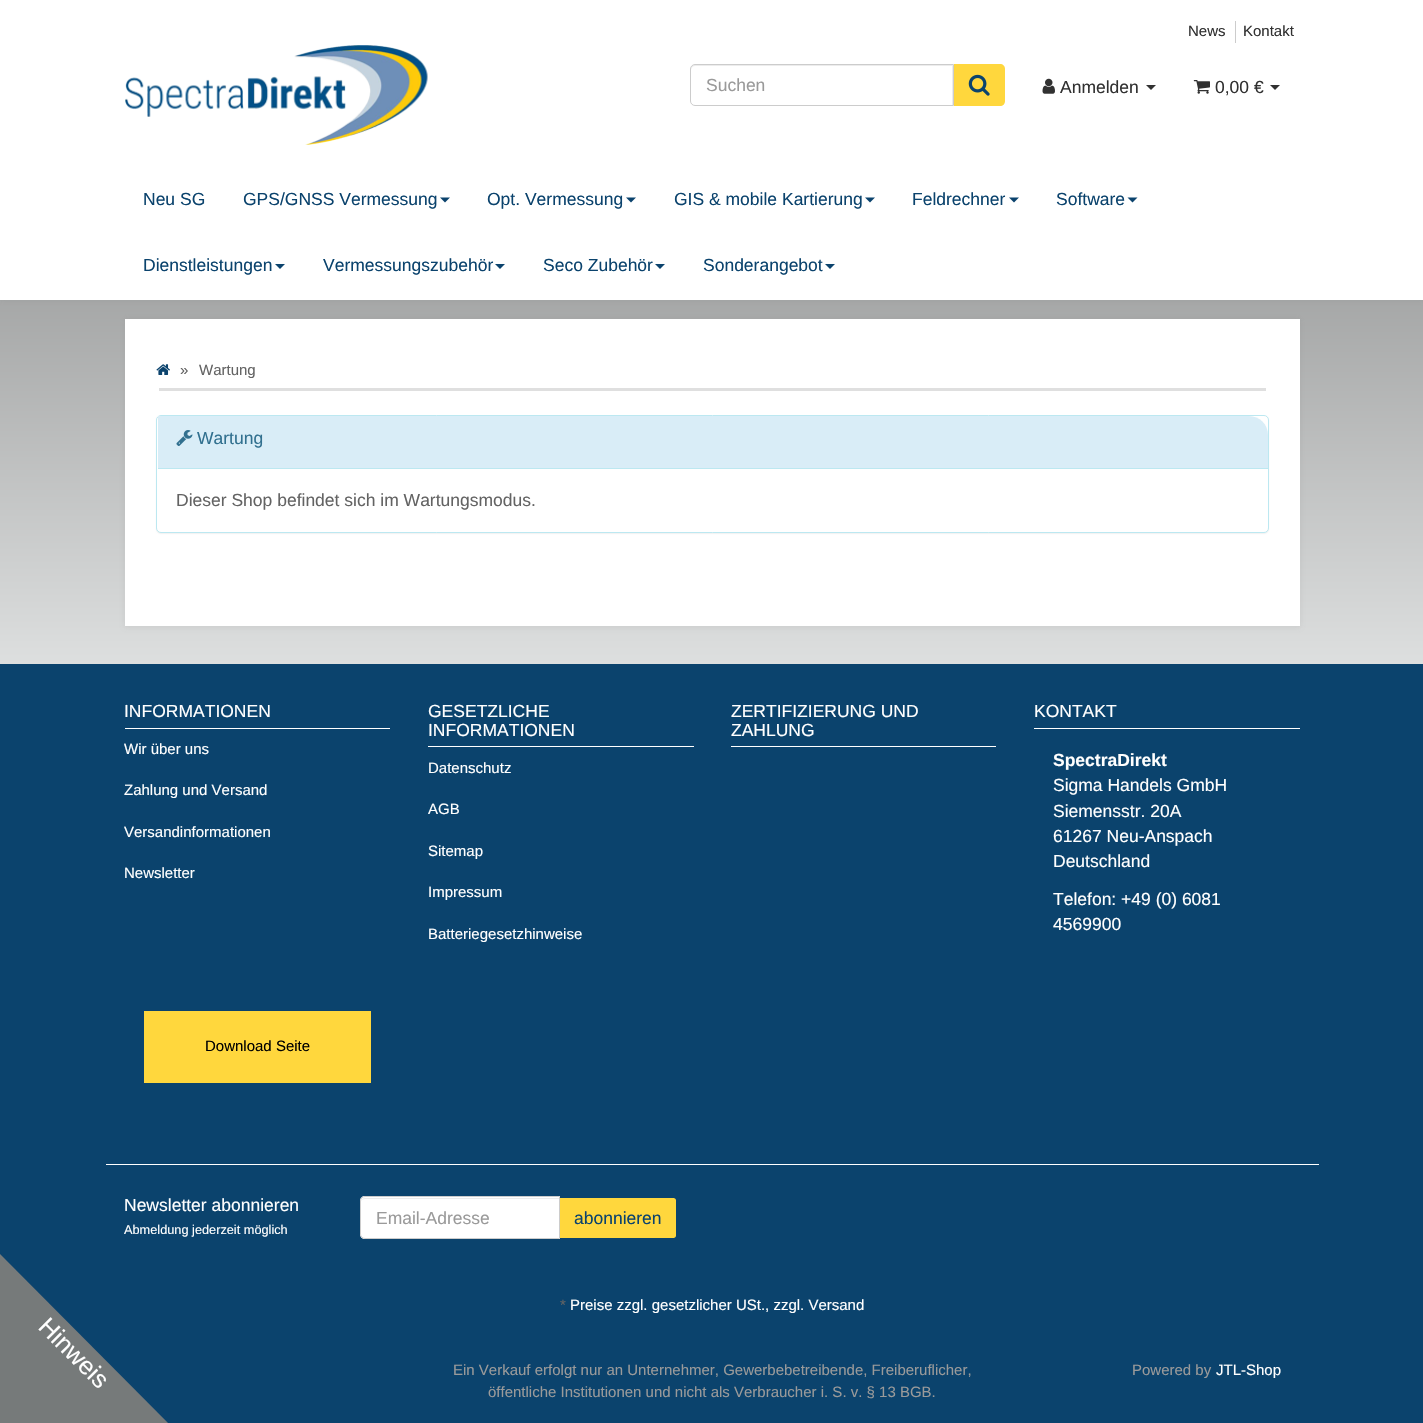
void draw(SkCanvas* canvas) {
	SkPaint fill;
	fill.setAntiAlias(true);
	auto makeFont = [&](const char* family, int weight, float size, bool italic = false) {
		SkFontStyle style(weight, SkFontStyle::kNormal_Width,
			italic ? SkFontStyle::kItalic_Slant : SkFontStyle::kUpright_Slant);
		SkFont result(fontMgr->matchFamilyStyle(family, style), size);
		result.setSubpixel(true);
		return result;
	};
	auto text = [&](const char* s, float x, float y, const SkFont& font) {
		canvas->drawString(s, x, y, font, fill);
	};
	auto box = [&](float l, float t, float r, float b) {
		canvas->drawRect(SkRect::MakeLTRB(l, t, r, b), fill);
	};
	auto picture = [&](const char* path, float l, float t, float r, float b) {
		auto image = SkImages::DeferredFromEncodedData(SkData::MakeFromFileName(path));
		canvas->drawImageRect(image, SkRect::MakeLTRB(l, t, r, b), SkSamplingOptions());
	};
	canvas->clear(0xFFFFFFFF);
	fill.setColor(0xFF0B436D);
	box(0, 664, 1423, 1423);
	fill.setColor(0xFF767A7A);
	canvas->drawPath(SkPathBuilder().moveTo(-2, 1252).lineTo(174, 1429).lineTo(65, 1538).lineTo(-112, 1361).close().detach(), fill);
	{
		const SkColor colors[] = {0xFF797A7A, 0xFFE5E7E7, 0xFFECECEC, 0xFFFFFFFF};
		const float stops[] = {0, 0.5f, 0.51f, 1};
		const SkPoint ends[] = {{712, 0}, {712, 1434}};
		fill.setShader(SkGradientShader::MakeLinear(ends, colors, stops, 4, SkTileMode::kClamp));
		fill.setAlpha(255);
	}
	box(0, 300, 1423, 664);
	fill.setShader(nullptr);
	fill.setColor(0x1A6A6A6A);
	fill.setMaskFilter(SkMaskFilter::MakeBlur(kNormal_SkBlurStyle, 3));
	canvas->drawRect(SkRect::MakeLTRB(-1, -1, 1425, 301), fill);
	fill.setMaskFilter(nullptr);
	fill.setColor(0xFFFFFFFF);
	box(0, 0, 1423, 300);
	fill.setColor(0xFFCCCCCC);
	box(1235, 21, 1236, 43);
	picture("image0.png", 125, 45, 428, 145);
	fill.setColor(0xFFECECEC);
	canvas->drawPath(SkPathBuilder().moveTo(695, 66).lineTo(952, 66).lineTo(952, 105).lineTo(953, 105).lineTo(953, 65).lineTo(695, 65).cubicTo(692, 65, 691, 67, 691, 70).cubicTo(691, 68, 693, 66, 695, 66).close().detach(), fill);
	fill.setStyle(SkPaint::kStroke_Style);
	fill.setStrokeWidth(1);
	fill.setColor(0xFFCCCCCC);
	canvas->drawPath(SkPathBuilder().moveTo(695, 64.5f).lineTo(953.5f, 64.5f).lineTo(953.5f, 105.5f).lineTo(695, 105.5f).cubicTo(692.5f, 105.5f, 690.5f, 103.5f, 690.5f, 101).lineTo(690.5f, 69).cubicTo(690.5f, 66.5f, 692.5f, 64.5f, 695, 64.5f).close().detach(), fill);
	fill.setStyle(SkPaint::kFill_Style);
	fill.setColor(0xFFFFD73D);
	canvas->drawPath(SkPathBuilder().moveTo(954, 64).lineTo(1000, 64).cubicTo(1003, 64, 1005, 66, 1005, 69).lineTo(1005, 101).cubicTo(1005, 104, 1003, 106, 1000, 106).lineTo(954, 106).close().detach(), fill);
	picture("image1.png", 968, 74, 990, 96);
	picture("image2.png", 1042, 78, 1055, 94);
	fill.setColor(0xFF313131);
	canvas->drawPath(SkPathBuilder().moveTo(1146, 85).lineTo(1156, 85).lineTo(1151, 90).close().detach(), fill);
	picture("image3.png", 1193, 80, 1210, 94);
	canvas->drawPath(SkPathBuilder().moveTo(1270, 85).lineTo(1280, 85).lineTo(1275, 90).close().detach(), fill);
	fill.setColor(0xFF0B436D);
	canvas->drawPath(SkPathBuilder().moveTo(440, 197.5f).lineTo(450, 197.5f).lineTo(445, 202.5f).close().detach(), fill);
	canvas->drawPath(SkPathBuilder().moveTo(626, 197.5f).lineTo(636, 197.5f).lineTo(631, 202.5f).close().detach(), fill);
	canvas->drawPath(SkPathBuilder().moveTo(865, 197.5f).lineTo(875, 197.5f).lineTo(870, 202.5f).close().detach(), fill);
	canvas->drawPath(SkPathBuilder().moveTo(1009, 197.5f).lineTo(1019, 197.5f).lineTo(1014, 202.5f).close().detach(), fill);
	canvas->drawPath(SkPathBuilder().moveTo(1127.5f, 197.5f).lineTo(1137.5f, 197.5f).lineTo(1132.5f, 202.5f).close().detach(), fill);
	canvas->drawPath(SkPathBuilder().moveTo(275, 264).lineTo(285, 264).lineTo(280, 269).close().detach(), fill);
	canvas->drawPath(SkPathBuilder().moveTo(495, 264).lineTo(505, 264).lineTo(500, 269).close().detach(), fill);
	canvas->drawPath(SkPathBuilder().moveTo(655, 264).lineTo(665, 264).lineTo(660, 269).close().detach(), fill);
	canvas->drawPath(SkPathBuilder().moveTo(825, 264).lineTo(835, 264).lineTo(830, 269).close().detach(), fill);
	fill.setColor(0x1A6A6A6A);
	fill.setMaskFilter(SkMaskFilter::MakeBlur(kNormal_SkBlurStyle, 3));
	canvas->drawRect(SkRect::MakeLTRB(124, 318, 1301, 628), fill);
	fill.setMaskFilter(nullptr);
	fill.setColor(0xFFFFFFFF);
	box(125, 319, 1300, 626);
	fill.setColor(0xFFDFDFDF);
	box(159, 388, 1266, 391);
	picture("image4.png", 156, 364, 170, 375);
	fill.setColor(0x0D000000);
	fill.setMaskFilter(SkMaskFilter::MakeBlur(kNormal_SkBlurStyle, 0.5f));
	canvas->drawRoundRect(SkRect::MakeLTRB(156, 416, 1269, 534), 5, 5, fill);
	fill.setMaskFilter(nullptr);
	fill.setColor(0xFFFFFFFF);
	canvas->drawRoundRect(SkRect::MakeLTRB(156.5f, 415.5f, 1268.5f, 532.5f), 4.5f, 4.5f, fill);
	fill.setStyle(SkPaint::kStroke_Style);
	fill.setColor(0xFFBCE8F1);
	canvas->drawRoundRect(SkRect::MakeLTRB(156.5f, 415.5f, 1268.5f, 532.5f), 4.5f, 4.5f, fill);
	fill.setStyle(SkPaint::kFill_Style);
	fill.setColor(0xFFD9EDF7);
	canvas->drawPath(SkPathBuilder().moveTo(158, 416).lineTo(1249, 416).cubicTo(1259.5f, 416, 1268, 424.5f, 1268, 435).lineTo(1268, 469).lineTo(158, 469).close().detach(), fill);
	fill.setColor(0xFFBCE8F1);
	box(158, 468, 1268, 469);
	picture("image5.png", 176, 430, 193, 446);
	fill.setColor(0xFFFFFFFF);
	box(125, 728, 390, 729);
	box(428, 746, 694, 747);
	box(731, 746, 996, 747);
	box(1034, 728, 1300, 729);
	fill.setColor(0xFFFFD73D);
	box(144, 1011, 371, 1083);
	fill.setColor(0xFFFFFFFF);
	box(106, 1164, 1319, 1165);
	fill.setColor(0xFFFFD73D);
	canvas->drawPath(SkPathBuilder().moveTo(559, 1198).lineTo(673.5f, 1198).cubicTo(675, 1198, 676, 1199, 676, 1200.5f).lineTo(676, 1235.5f).cubicTo(676, 1237, 675, 1238, 673.5f, 1238).lineTo(559, 1238).close().detach(), fill);
	fill.setColor(0xFFFFFFFF);
	canvas->drawPath(SkPathBuilder().moveTo(365, 1196).lineTo(560, 1196).lineTo(560, 1239).lineTo(365, 1239).cubicTo(362, 1239, 360, 1237, 360, 1234).lineTo(360, 1201).cubicTo(360, 1198, 362, 1196, 365, 1196).close().detach(), fill);
	fill.setColor(0xFFECECEC);
	canvas->drawPath(SkPathBuilder().moveTo(365, 1199).lineTo(559, 1199).lineTo(559, 1198).lineTo(365, 1198).cubicTo(363, 1198, 361, 1200, 361, 1202).cubicTo(361, 1200, 363, 1199, 365, 1199).close().detach(), fill);
	fill.setStyle(SkPaint::kStroke_Style);
	fill.setColor(0xFFCCCCCC);
	canvas->drawPath(SkPathBuilder().moveTo(365, 1196.5f).lineTo(559.5f, 1196.5f).lineTo(559.5f, 1238.5f).lineTo(365, 1238.5f).cubicTo(362.5f, 1238.5f, 360.5f, 1236.5f, 360.5f, 1234).lineTo(360.5f, 1201).cubicTo(360.5f, 1198.5f, 362.5f, 1196.5f, 365, 1196.5f).close().detach(), fill);
	auto font1 = makeFont("Liberation Sans", 400, 25);
	fill.setStyle(SkPaint::kFill_Style);
	fill.setColor(0xFFFFFFFF);
	canvas->save();
	canvas->rotate(45, 37, 1328);
	text("Hinweis", 37, 1328, font1);
	canvas->restore();
	auto font2 = makeFont("Liberation Sans", 400, 15);
	fill.setColor(0xFF313131);
	text("News", 1188, 36, font2);
	text("Kontakt", 1243, 36, font2);
	auto font3 = makeFont("Liberation Sans", 400, 17.5f);
	fill.setColor(0xFF9A9A9A);
	text("Suchen", 706, 91, font3);
	fill.setColor(0xFF313131);
	text("Anmelden", 1060, 93, font3);
	text("0,00 €", 1215, 93, font3);
	fill.setColor(0xFF0B436D);
	text("Neu SG", 143, 205, font3);
	text("GPS/GNSS Vermessung", 243, 205, font3);
	text("Opt. Vermessung", 487, 205, font3);
	text("GIS & mobile Kartierung", 674, 205, font3);
	text("Feldrechner", 912, 205, font3);
	text("Software", 1056, 205, font3);
	text("Dienstleistungen", 143, 271, font3);
	text("Vermessungszubehör", 323, 271, font3);
	text("Seco Zubehör", 543, 271, font3);
	text("Sonderangebot", 703, 271, font3);
	fill.setColor(0xFF636363);
	text("»", 180, 375, font2);
	text("Wartung", 199, 375, font2);
	fill.setColor(0xFF31708F);
	text("Wartung", 197, 444, font3);
	fill.setColor(0xFF636363);
	text("Dieser Shop befindet sich im Wartungsmodus.", 176, 506, font3);
	fill.setColor(0xFFFFFFFF);
	text("INFORMATIONEN", 124, 717, font3);
	text("Wir über uns", 124, 754, font2);
	text("Zahlung und Versand", 124, 795, font2);
	text("Versandinformationen", 124, 837, font2);
	text("Newsletter", 124, 878, font2);
	text("GESETZLICHE", 428, 717, font3);
	text("INFORMATIONEN", 428, 736, font3);
	text("Datenschutz", 428, 773, font2);
	text("AGB", 428, 814, font2);
	text("Sitemap", 428, 856, font2);
	text("Impressum", 428, 897, font2);
	text("Batteriegesetzhinweise", 428, 939, font2);
	text("ZERTIFIZIERUNG UND", 731, 717, font3);
	text("ZAHLUNG", 731, 736, font3);
	text("KONTAKT", 1034, 717, font3);
	auto font4 = makeFont("Liberation Sans", 700, 17.5f);
	text("SpectraDirekt", 1053, 766, font4);
	text("Sigma Handels GmbH", 1053, 791, font3);
	text("Siemensstr. 20A", 1053, 817, font3);
	text("61267 Neu-Anspach", 1053, 842, font3);
	text("Deutschland", 1053, 867, font3);
	text("Telefon: +49 (0) 6081", 1053, 905, font3);
	text("4569900", 1053, 930, font3);
	fill.setColor(0xFF000000);
	text("Download Seite", 205, 1051, font2);
	fill.setColor(0xFFFFFFFF);
	text("Newsletter abonnieren", 124, 1211, font3);
	auto font5 = makeFont("Liberation Sans", 400, 12.75f);
	text("Abmeldung jederzeit möglich", 124, 1234, font5);
	fill.setColor(0xFF9A9A9A);
	text("Email-Adresse", 376, 1224, font3);
	fill.setColor(0xFF0B436D);
	text("abonnieren", 574, 1224, font3);
	fill.setColor(0xFF636363);
	text("*", 560, 1310, font2);
	fill.setColor(0xFFFFFFFF);
	text("Preise zzgl. gesetzlicher USt., zzgl. Versand", 570, 1310, font2);
	fill.setColor(0xFF9A9A9A);
	text("Ein Verkauf erfolgt nur an Unternehmer, Gewerbebetreibende, Freiberuflicher,", 453, 1375, font2);
	text("öffentliche Institutionen und nicht als Verbraucher i. S. v. § 13 BGB.", 488, 1397, font2);
	text("Powered by", 1132, 1375, font2);
	fill.setColor(0xFFFFFFFF);
	text("JTL-Shop", 1216, 1375, font2);
}
